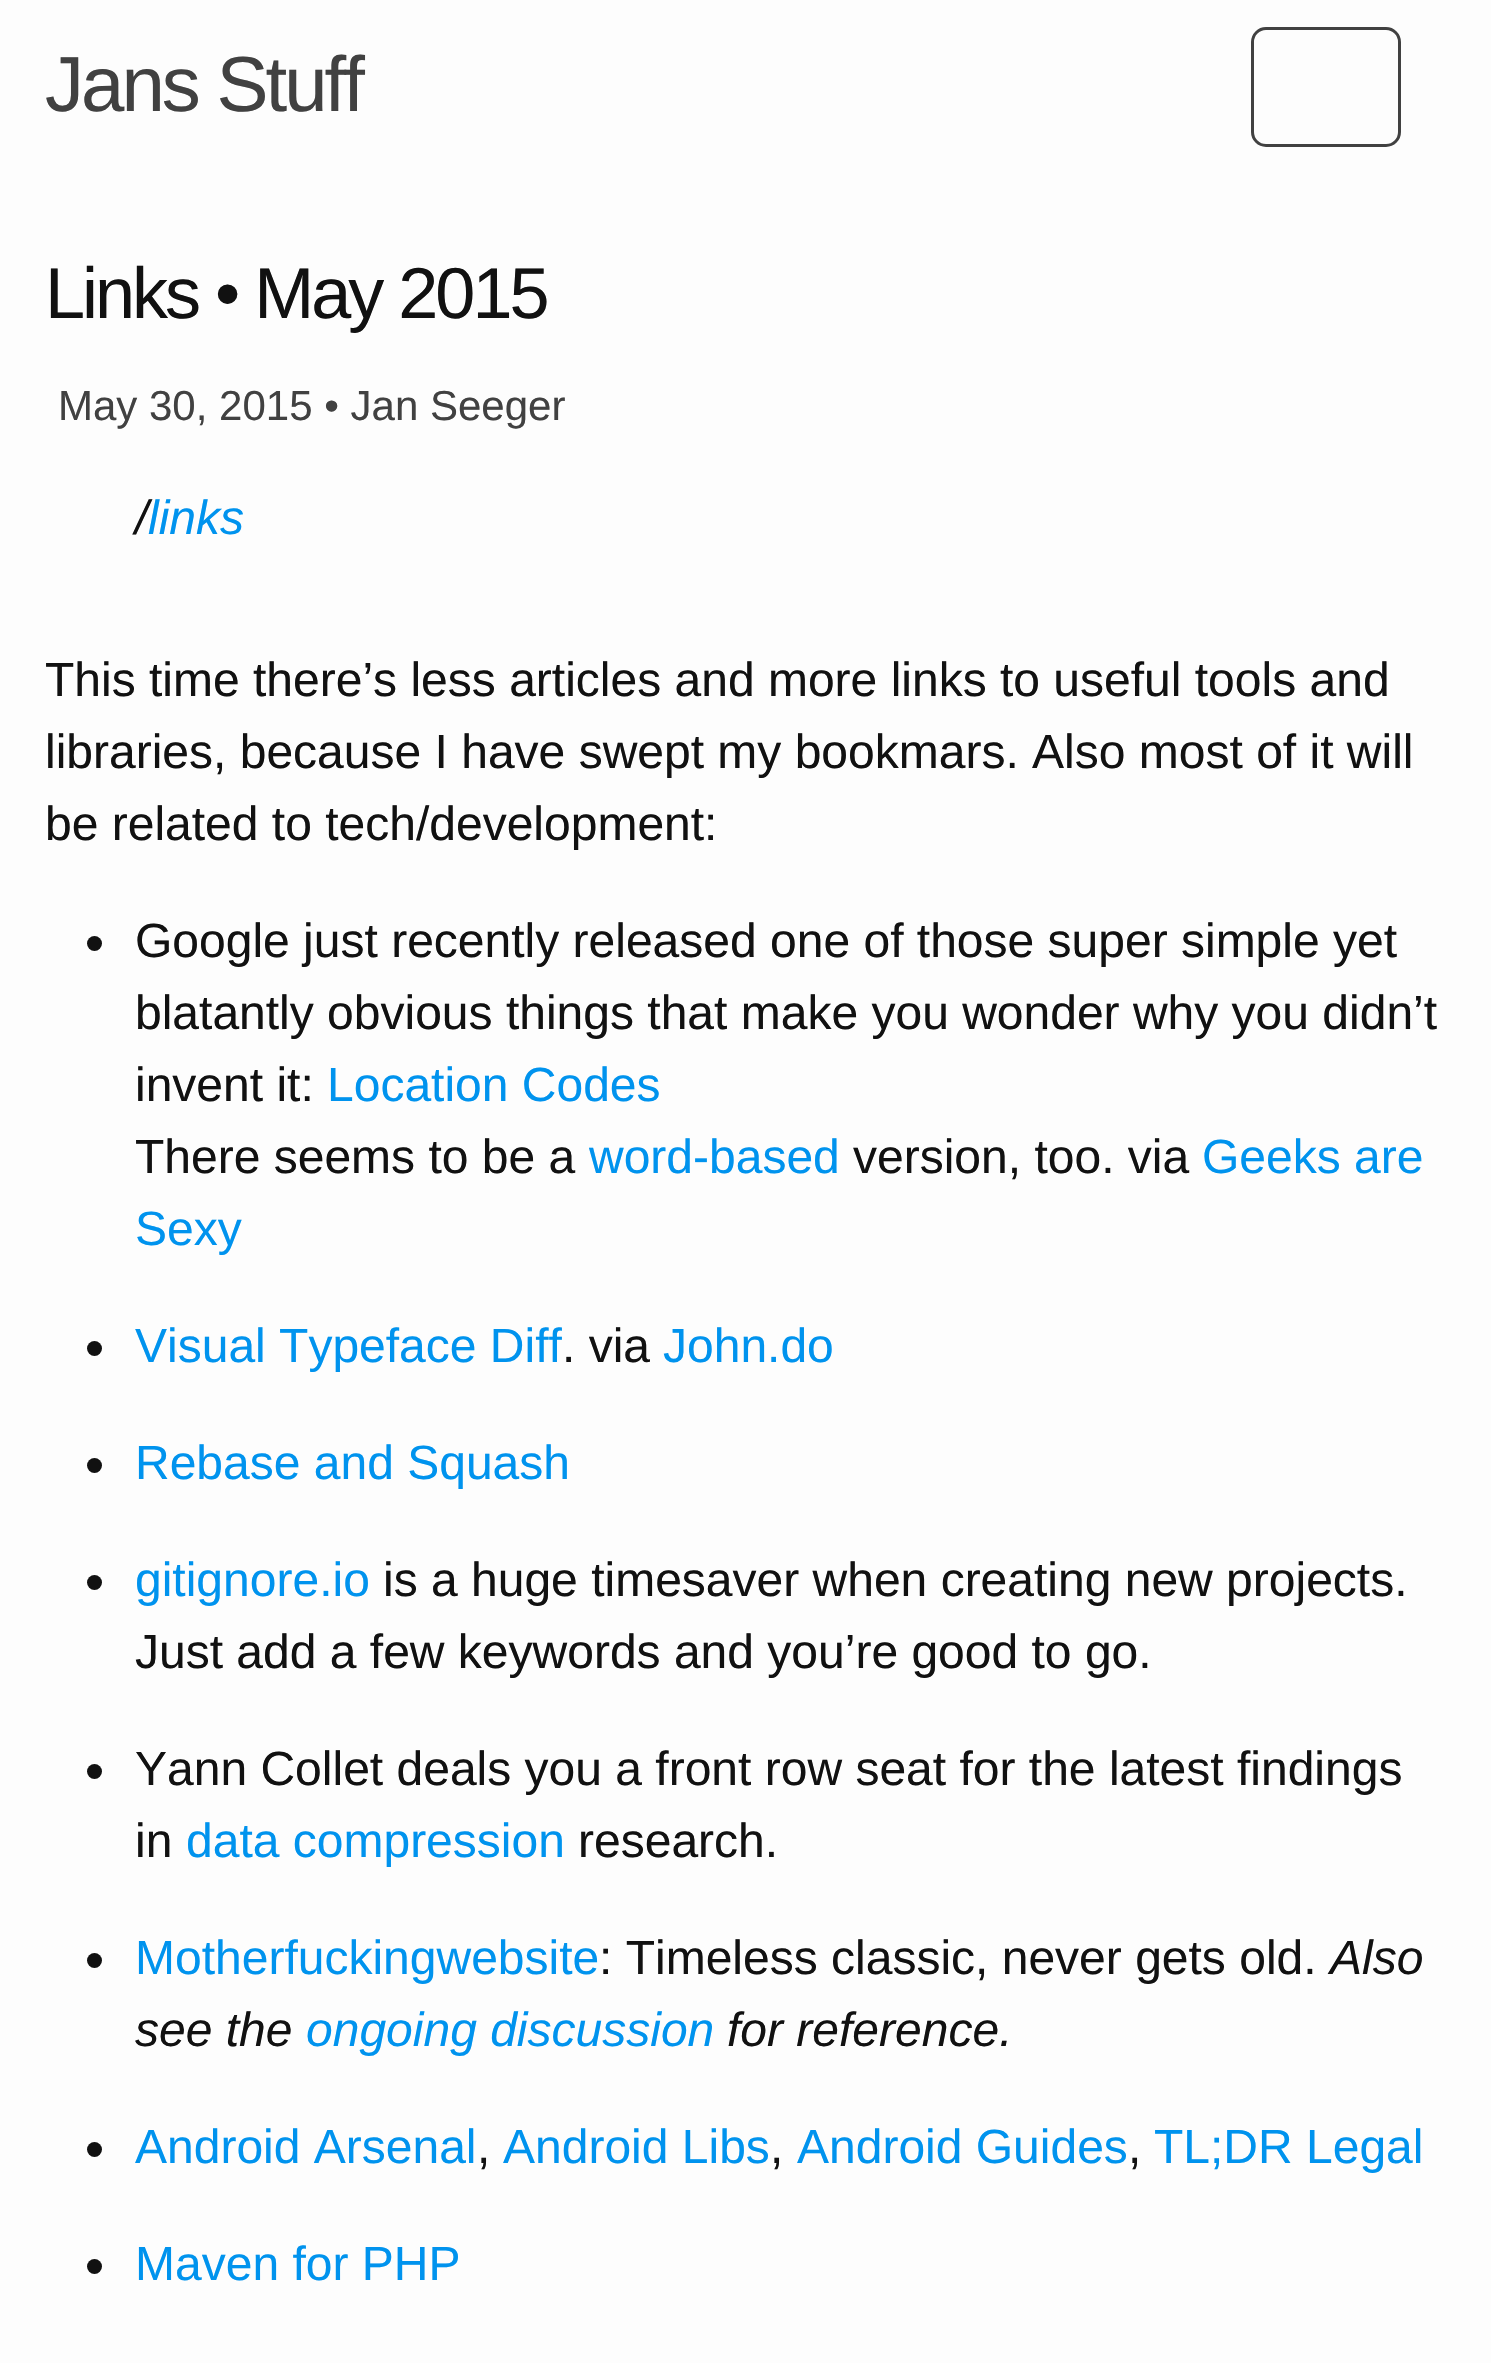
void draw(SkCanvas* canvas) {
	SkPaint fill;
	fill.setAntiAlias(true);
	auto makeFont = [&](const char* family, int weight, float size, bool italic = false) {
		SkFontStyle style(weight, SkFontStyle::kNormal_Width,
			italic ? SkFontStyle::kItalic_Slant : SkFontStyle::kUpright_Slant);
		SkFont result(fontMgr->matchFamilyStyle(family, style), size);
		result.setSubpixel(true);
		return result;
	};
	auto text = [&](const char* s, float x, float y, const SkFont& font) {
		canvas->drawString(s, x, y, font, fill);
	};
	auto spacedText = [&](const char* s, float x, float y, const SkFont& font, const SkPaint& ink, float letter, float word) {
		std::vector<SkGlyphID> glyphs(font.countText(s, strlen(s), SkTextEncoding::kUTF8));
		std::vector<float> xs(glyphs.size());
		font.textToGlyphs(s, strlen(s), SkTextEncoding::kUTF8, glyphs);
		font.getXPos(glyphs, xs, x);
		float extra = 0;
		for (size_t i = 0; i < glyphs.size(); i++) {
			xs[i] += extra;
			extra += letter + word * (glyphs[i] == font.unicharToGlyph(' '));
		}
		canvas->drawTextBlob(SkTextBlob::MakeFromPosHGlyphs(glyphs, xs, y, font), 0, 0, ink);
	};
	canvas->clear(0xFFFDFDFD);
	fill.setStyle(SkPaint::kStroke_Style);
	fill.setStrokeWidth(3);
	fill.setColor(0xFF414141);
	canvas->drawRoundRect(SkRect::MakeLTRB(1252.5f, 28.5f, 1399.5f, 145.5f), 13.5f, 13.5f, fill);
	fill.setStyle(SkPaint::kFill_Style);
	fill.setColor(0xFF111111);
	canvas->drawCircle(94.5f, 943.5f, 7.5f, fill);
	canvas->drawCircle(94.5f, 1348.5f, 7.5f, fill);
	canvas->drawCircle(94.5f, 1465.5f, 7.5f, fill);
	canvas->drawCircle(94.5f, 1582.5f, 7.5f, fill);
	canvas->drawCircle(94.5f, 1771.5f, 7.5f, fill);
	canvas->drawCircle(94.5f, 1960.5f, 7.5f, fill);
	canvas->drawCircle(94.5f, 2149.5f, 7.5f, fill);
	canvas->drawCircle(94.5f, 2266.5f, 7.5f, fill);
	auto font1 = makeFont("Liberation Sans", 400, 78);
	fill.setColor(0xFF414141);
	spacedText("Jans Stuff", 45, 111, font1, fill, -3, 0);
	auto font2 = makeFont("Liberation Sans", 400, 72);
	fill.setColor(0xFF111111);
	spacedText("Links • May 2015", 45, 318, font2, fill, -3, 0);
	auto font3 = makeFont("Liberation Sans", 400, 42);
	fill.setColor(0xFF414141);
	text("May 30, 2015 • Jan Seeger", 58, 420, font3);
	auto font4 = makeFont("Liberation Sans", 400, 48, true);
	fill.setColor(0xFF111111);
	text("/", 135, 534, font4);
	fill.setColor(0xFF0093EE);
	text("links", 148, 534, font4);
	auto font5 = makeFont("Liberation Sans", 400, 48);
	fill.setColor(0xFF111111);
	text("This time there’s less articles and more links to useful tools and", 45, 696, font5);
	text("libraries, because I have swept my bookmars. Also most of it will", 45, 768, font5);
	text("be related to tech/development:", 45, 840, font5);
	text("Google just recently released one of those super simple yet", 135, 957, font5);
	text("blatantly obvious things that make you wonder why you didn’t", 135, 1029, font5);
	text("invent it:", 135, 1101, font5);
	fill.setColor(0xFF0093EE);
	text("Location Codes", 327, 1101, font5);
	fill.setColor(0xFF111111);
	text("There seems to be a", 135, 1173, font5);
	fill.setColor(0xFF0093EE);
	text("word-based", 589, 1173, font5);
	fill.setColor(0xFF111111);
	text("version, too. via", 853, 1173, font5);
	fill.setColor(0xFF0093EE);
	text("Geeks are", 1202, 1173, font5);
	text("Sexy", 135, 1245, font5);
	text("Visual Typeface Diff", 135, 1362, font5);
	fill.setColor(0xFF111111);
	text(". via", 562, 1362, font5);
	fill.setColor(0xFF0093EE);
	text("John.do", 663, 1362, font5);
	text("Rebase and Squash", 135, 1479, font5);
	text("gitignore.io", 135, 1596, font5);
	fill.setColor(0xFF111111);
	text("is a huge timesaver when creating new projects.", 383, 1596, font5);
	text("Just add a few keywords and you’re good to go.", 135, 1668, font5);
	text("Yann Collet deals you a front row seat for the latest findings", 135, 1785, font5);
	text("in", 135, 1857, font5);
	fill.setColor(0xFF0093EE);
	text("data compression", 186, 1857, font5);
	fill.setColor(0xFF111111);
	text("research.", 578, 1857, font5);
	fill.setColor(0xFF0093EE);
	text("Motherfuckingwebsite", 135, 1974, font5);
	fill.setColor(0xFF111111);
	text(": Timeless classic, never gets old.", 599, 1974, font5);
	text("Also", 1330, 1974, font4);
	text("see the", 135, 2046, font4);
	fill.setColor(0xFF0093EE);
	text("ongoing discussion", 306, 2046, font4);
	fill.setColor(0xFF111111);
	text("for reference.", 727, 2046, font4);
	fill.setColor(0xFF0093EE);
	text("Android Arsenal", 135, 2163, font5);
	fill.setColor(0xFF111111);
	text(",", 477, 2163, font5);
	fill.setColor(0xFF0093EE);
	text("Android Libs", 503, 2163, font5);
	fill.setColor(0xFF111111);
	text(",", 770, 2163, font5);
	fill.setColor(0xFF0093EE);
	text("Android Guides", 797, 2163, font5);
	fill.setColor(0xFF111111);
	text(",", 1128, 2163, font5);
	fill.setColor(0xFF0093EE);
	text("TL;DR Legal", 1154, 2163, font5);
	text("Maven for PHP", 135, 2280, font5);
}
